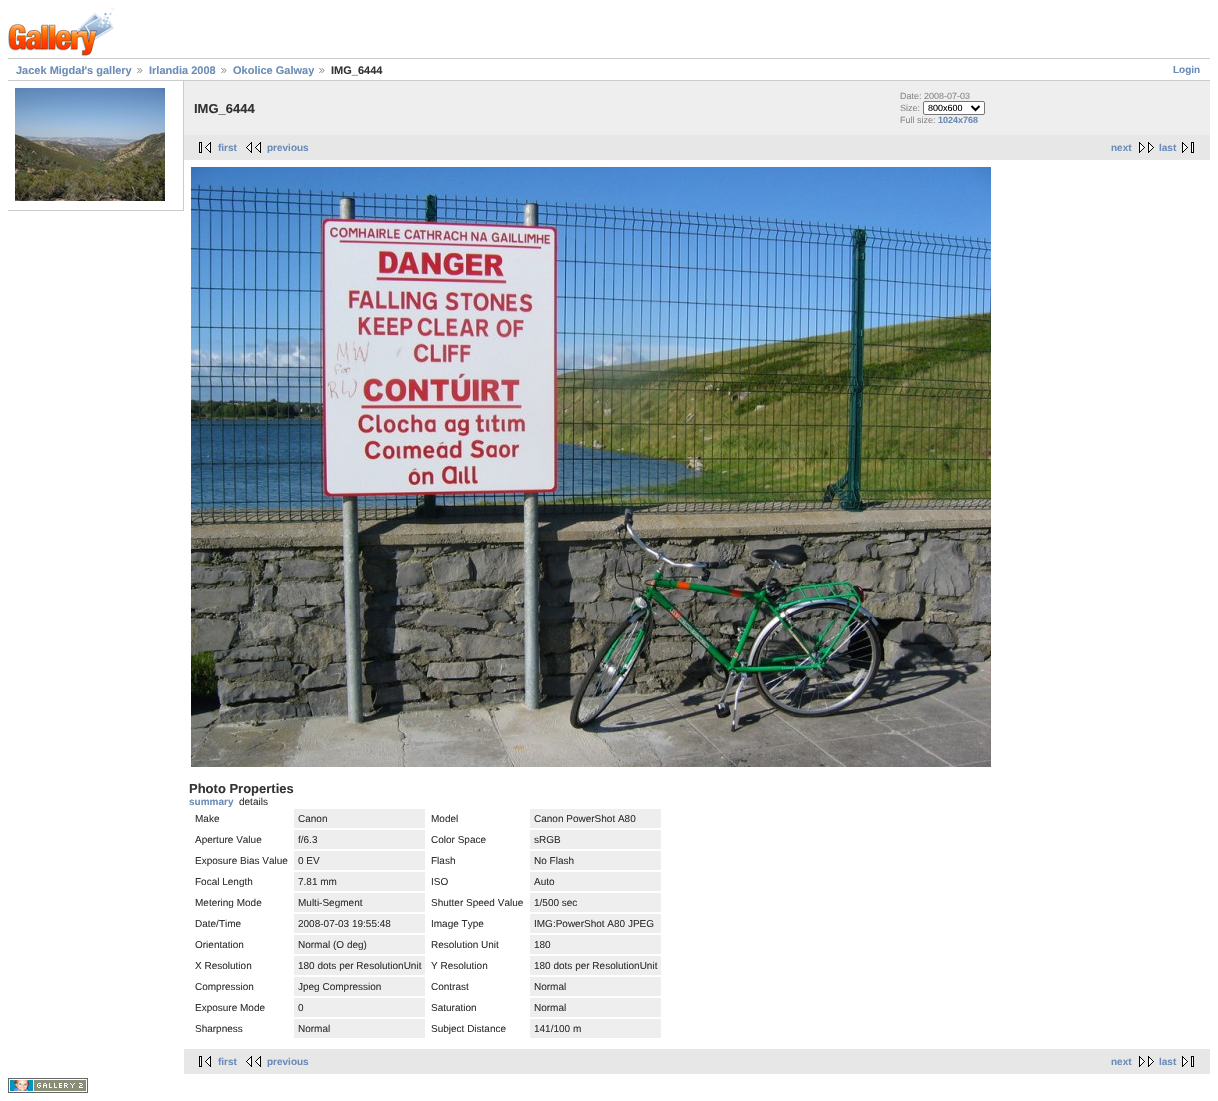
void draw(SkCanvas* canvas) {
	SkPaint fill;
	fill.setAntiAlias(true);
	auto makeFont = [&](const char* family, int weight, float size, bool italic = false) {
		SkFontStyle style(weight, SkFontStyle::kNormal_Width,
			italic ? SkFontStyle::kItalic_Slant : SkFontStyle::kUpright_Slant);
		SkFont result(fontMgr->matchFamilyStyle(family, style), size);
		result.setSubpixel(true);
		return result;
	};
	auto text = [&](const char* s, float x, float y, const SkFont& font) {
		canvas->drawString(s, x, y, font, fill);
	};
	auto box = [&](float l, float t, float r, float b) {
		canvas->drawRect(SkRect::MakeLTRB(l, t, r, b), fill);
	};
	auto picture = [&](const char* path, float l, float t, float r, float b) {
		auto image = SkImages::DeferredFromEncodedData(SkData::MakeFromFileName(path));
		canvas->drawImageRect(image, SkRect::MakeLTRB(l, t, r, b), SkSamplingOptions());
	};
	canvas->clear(0xFFFFFFFF);
	picture("image0.png", 8, 8, 115, 56);
	fill.setColor(0xFFCCCCCC);
	box(8, 58, 1210, 59);
	box(8, 80, 1210, 81);
	picture("image1.png", 137, 68, 143, 73);
	picture("image1.png", 221, 68, 227, 73);
	picture("image1.png", 319, 68, 325, 73);
	box(183, 81, 184, 211);
	box(8, 210, 183, 211);
	picture("image2.png", 15, 88, 165, 201);
	fill.setColor(0xFFEEEEEE);
	box(184, 81, 1210, 135);
	fill.setColor(0xFFFFFFFF);
	canvas->drawRoundRect(SkRect::MakeLTRB(923.5f, 101.5f, 984.5f, 114.5f), 1.5f, 1.5f, fill);
	fill.setStyle(SkPaint::kStroke_Style);
	fill.setStrokeWidth(1);
	fill.setColor(0xFF767676);
	canvas->drawRoundRect(SkRect::MakeLTRB(923.5f, 101.5f, 984.5f, 114.5f), 1.5f, 1.5f, fill);
	fill.setStrokeWidth(2);
	fill.setColor(0xFF000000);
	canvas->drawPath(SkPathBuilder().moveTo(971.5f, 106).lineTo(975.5f, 110).lineTo(979.5f, 106).detach(), fill);
	fill.setStyle(SkPaint::kFill_Style);
	fill.setColor(0xFFE7E7E7);
	box(184, 135, 1210, 160);
	picture("image3.png", 199, 142, 211, 153);
	picture("image4.png", 246, 142, 261, 153);
	picture("image5.png", 1139, 142, 1154, 153);
	picture("image6.png", 1182, 142, 1194, 153);
	picture("image7.png", 191, 167, 991, 767);
	fill.setColor(0xFFEEEEEE);
	box(294, 809, 425, 828);
	box(530, 809, 661, 828);
	box(294, 830, 425, 849);
	box(530, 830, 661, 849);
	box(294, 851, 425, 870);
	box(530, 851, 661, 870);
	box(294, 872, 425, 891);
	box(530, 872, 661, 891);
	box(294, 893, 425, 912);
	box(530, 893, 661, 912);
	box(294, 914, 425, 933);
	box(530, 914, 661, 933);
	box(294, 935, 425, 954);
	box(530, 935, 661, 954);
	box(294, 956, 425, 975);
	box(530, 956, 661, 975);
	box(294, 977, 425, 996);
	box(530, 977, 661, 996);
	box(294, 998, 425, 1017);
	box(530, 998, 661, 1017);
	box(294, 1019, 425, 1038);
	box(530, 1019, 661, 1038);
	fill.setColor(0xFFE7E7E7);
	box(184, 1049, 1210, 1074);
	picture("image3.png", 199, 1056, 211, 1067);
	picture("image4.png", 246, 1056, 261, 1067);
	picture("image5.png", 1139, 1056, 1154, 1067);
	picture("image6.png", 1182, 1056, 1194, 1067);
	picture("image8.png", 8, 1078, 88, 1093);
	auto font1 = makeFont("Liberation Sans", 700, 11);
	fill.setColor(0xFF6B8CB7);
	text("Jacek Migdał's gallery", 16, 74, font1);
	text("Irlandia 2008", 149, 74, font1);
	text("Okolice Galway", 233, 74, font1);
	fill.setColor(0xFF333333);
	text("IMG_6444", 331, 74, font1);
	auto font2 = makeFont("Liberation Sans", 700, 10);
	fill.setColor(0xFF6B8CB7);
	text("Login", 1173, 73, font2);
	auto font3 = makeFont("Liberation Sans", 700, 13);
	fill.setColor(0xFF333333);
	text("IMG_6444", 194, 113, font3);
	auto font4 = makeFont("Liberation Sans", 400, 9);
	fill.setColor(0xFF888888);
	text("Date: 2008-07-03", 900, 99, font4);
	text("Size:", 900, 111, font4);
	fill.setColor(0xFF000000);
	text("800x600", 928, 111, font4);
	fill.setColor(0xFF888888);
	text("Full size:", 900, 123, font4);
	auto font5 = makeFont("Liberation Sans", 700, 9);
	fill.setColor(0xFF6B8CB7);
	text("1024x768", 938, 123, font5);
	text("first", 218, 151, font2);
	text("previous", 267, 151, font2);
	text("next", 1111, 151, font2);
	text("last", 1159, 151, font2);
	fill.setColor(0xFF333333);
	text("Photo Properties", 189, 793, font3);
	fill.setColor(0xFF6B8CB7);
	text("summary", 189, 805, font2);
	auto font6 = makeFont("Liberation Sans", 400, 10);
	fill.setColor(0xFF333333);
	text("details", 239, 805, font6);
	text("Make", 195, 822, font6);
	text("Canon", 298, 822, font6);
	text("Model", 431, 822, font6);
	text("Canon PowerShot A80", 534, 822, font6);
	text("Aperture Value", 195, 843, font6);
	text("f/6.3", 298, 843, font6);
	text("Color Space", 431, 843, font6);
	text("sRGB", 534, 843, font6);
	text("Exposure Bias Value", 195, 864, font6);
	text("0 EV", 298, 864, font6);
	text("Flash", 431, 864, font6);
	text("No Flash", 534, 864, font6);
	text("Focal Length", 195, 885, font6);
	text("7.81 mm", 298, 885, font6);
	text("ISO", 431, 885, font6);
	text("Auto", 534, 885, font6);
	text("Metering Mode", 195, 906, font6);
	text("Multi-Segment", 298, 906, font6);
	text("Shutter Speed Value", 431, 906, font6);
	text("1/500 sec", 534, 906, font6);
	text("Date/Time", 195, 927, font6);
	text("2008-07-03 19:55:48", 298, 927, font6);
	text("Image Type", 431, 927, font6);
	text("IMG:PowerShot A80 JPEG", 534, 927, font6);
	text("Orientation", 195, 948, font6);
	text("Normal (O deg)", 298, 948, font6);
	text("Resolution Unit", 431, 948, font6);
	text("180", 534, 948, font6);
	text("X Resolution", 195, 969, font6);
	text("180 dots per ResolutionUnit", 298, 969, font6);
	text("Y Resolution", 431, 969, font6);
	text("180 dots per ResolutionUnit", 534, 969, font6);
	text("Compression", 195, 990, font6);
	text("Jpeg Compression", 298, 990, font6);
	text("Contrast", 431, 990, font6);
	text("Normal", 534, 990, font6);
	text("Exposure Mode", 195, 1011, font6);
	text("0", 298, 1011, font6);
	text("Saturation", 431, 1011, font6);
	text("Normal", 534, 1011, font6);
	text("Sharpness", 195, 1032, font6);
	text("Normal", 298, 1032, font6);
	text("Subject Distance", 431, 1032, font6);
	text("141/100 m", 534, 1032, font6);
	fill.setColor(0xFF6B8CB7);
	text("first", 218, 1065, font2);
	text("previous", 267, 1065, font2);
	text("next", 1111, 1065, font2);
	text("last", 1159, 1065, font2);
}
